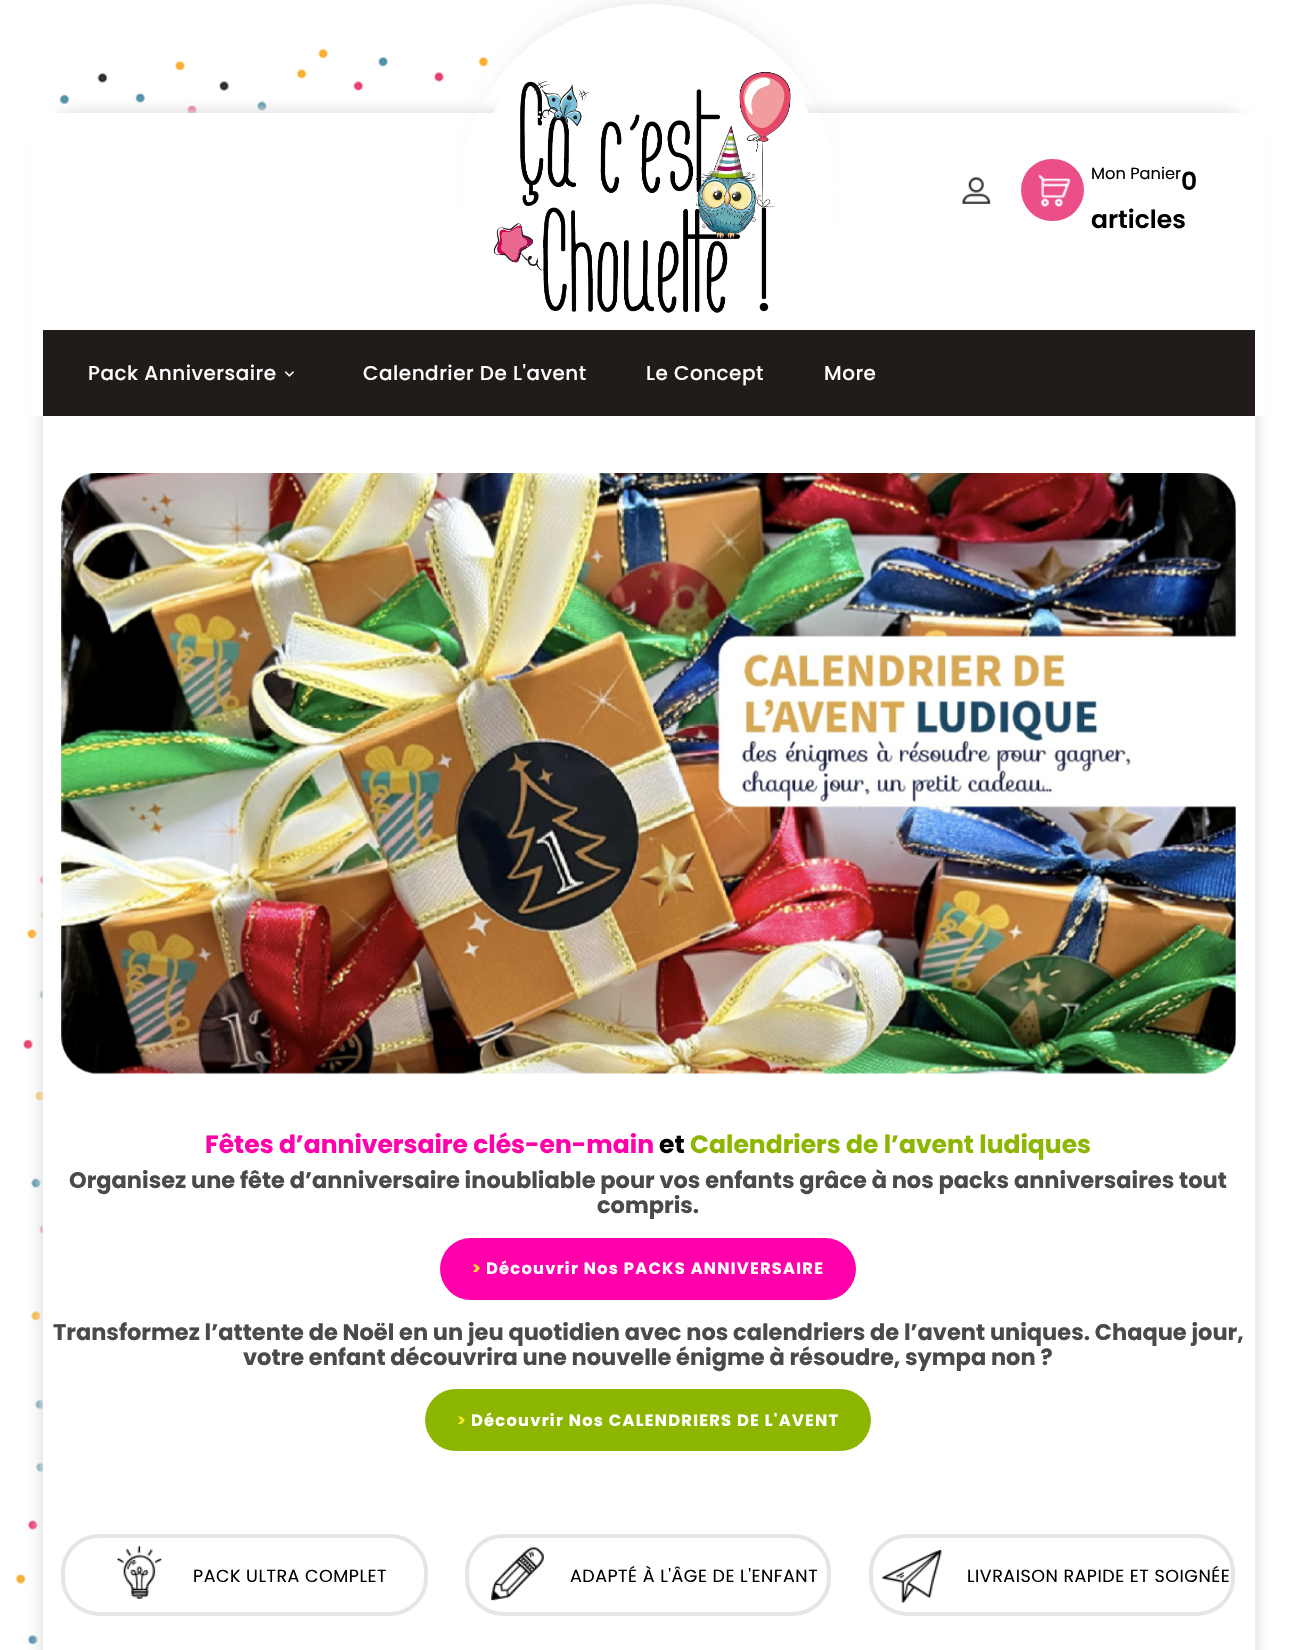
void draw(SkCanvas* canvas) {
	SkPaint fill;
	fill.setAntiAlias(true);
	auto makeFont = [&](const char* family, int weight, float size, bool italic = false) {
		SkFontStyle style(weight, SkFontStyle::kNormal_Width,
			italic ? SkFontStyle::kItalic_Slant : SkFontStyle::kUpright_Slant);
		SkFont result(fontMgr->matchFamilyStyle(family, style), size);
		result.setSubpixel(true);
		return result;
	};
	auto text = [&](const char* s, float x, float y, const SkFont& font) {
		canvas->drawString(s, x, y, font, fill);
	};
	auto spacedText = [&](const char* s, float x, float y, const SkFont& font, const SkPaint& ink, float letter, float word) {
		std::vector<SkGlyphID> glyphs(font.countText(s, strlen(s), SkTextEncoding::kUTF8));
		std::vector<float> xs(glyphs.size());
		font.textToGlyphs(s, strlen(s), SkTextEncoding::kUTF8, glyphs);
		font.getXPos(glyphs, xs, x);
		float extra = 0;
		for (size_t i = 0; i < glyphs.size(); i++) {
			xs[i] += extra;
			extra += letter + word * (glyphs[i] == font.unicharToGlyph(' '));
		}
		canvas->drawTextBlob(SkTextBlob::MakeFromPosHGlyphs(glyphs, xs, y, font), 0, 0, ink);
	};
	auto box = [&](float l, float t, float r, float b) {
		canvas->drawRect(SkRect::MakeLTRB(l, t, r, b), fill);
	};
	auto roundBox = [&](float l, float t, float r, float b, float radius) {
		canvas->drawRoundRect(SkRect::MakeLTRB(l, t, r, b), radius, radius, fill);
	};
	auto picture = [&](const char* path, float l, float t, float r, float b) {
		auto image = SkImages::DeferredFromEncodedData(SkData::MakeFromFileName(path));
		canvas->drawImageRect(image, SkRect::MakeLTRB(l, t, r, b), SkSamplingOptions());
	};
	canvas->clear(0xFFFFFFFF);
	picture("image0.png", 0, 0, 1296, 1650);
	fill.setColor(0xFFE5E5E5);
	fill.setMaskFilter(SkMaskFilter::MakeBlur(kNormal_SkBlurStyle, 6));
	canvas->drawRoundRect(SkRect::MakeLTRB(39, 109, 1259, 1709), 41, 41, fill);
	fill.setMaskFilter(nullptr);
	fill.setColor(0xFFFFFFFF);
	box(30, 113, 1267, 416);
	canvas->save();
	canvas->clipPath(SkPathBuilder(SkPathFillType::kEvenOdd).moveTo(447, 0).lineTo(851, 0).lineTo(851, 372).lineTo(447, 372).close().moveTo(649, 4).cubicTo(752.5f, 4, 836, 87, 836, 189.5f).cubicTo(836, 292, 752.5f, 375, 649, 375).cubicTo(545, 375, 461, 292, 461, 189.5f).cubicTo(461, 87, 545, 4, 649, 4).close().detach(), true);
	fill.setColor(0xFFE5E5E5);
	fill.setMaskFilter(SkMaskFilter::MakeBlur(kNormal_SkBlurStyle, 10));
	canvas->drawRoundRect(SkRect::MakeLTRB(478, 3, 820, 341), 169, 169, fill);
	fill.setMaskFilter(nullptr);
	canvas->restore();
	picture("image1.png", 493, 61, 809, 313);
	picture("image2.png", 962, 177, 991, 204);
	fill.setColor(0xFFEC4E89);
	roundBox(1021, 159, 1084, 221, 31);
	picture("image3.png", 1038, 174, 1071, 207);
	fill.setColor(0xFF211C19);
	box(43, 330, 1255, 416);
	picture("image4.png", 284, 371, 294, 377);
	fill.setColor(0xFFFFFFFF);
	box(43, 416, 1255, 1650);
	picture("image5.png", 61, 473, 1236, 1074);
	fill.setColor(0xFFFF00AA);
	roundBox(440, 1238, 856, 1300, 31);
	fill.setColor(0xFF8DB600);
	roundBox(425, 1389, 871, 1451, 31);
	fill.setStyle(SkPaint::kStroke_Style);
	fill.setStrokeWidth(4);
	fill.setColor(0xFFE5E5E5);
	canvas->drawRoundRect(SkRect::MakeLTRB(63, 1536, 426, 1614), 36, 36, fill);
	picture("image6.png", 117, 1546, 162, 1599);
	canvas->drawRoundRect(SkRect::MakeLTRB(467, 1536, 829, 1614), 36, 36, fill);
	picture("image7.png", 491, 1547, 544, 1601);
	canvas->drawRoundRect(SkRect::MakeLTRB(871, 1536, 1233, 1614), 36, 36, fill);
	picture("image8.png", 882, 1549, 942, 1603);
	auto font1 = makeFont("Poppins", 400, 16.25f);
	fill.setStyle(SkPaint::kFill_Style);
	fill.setColor(0xFF000000);
	text("Mon Panier", 1091, 179, font1);
	auto font2 = makeFont("Poppins", 600, 25);
	text("0", 1181, 190, font2);
	text("articles", 1091, 228, font2);
	auto font3 = makeFont("Poppins", 500, 20);
	fill.setColor(0xFFFFFFFF);
	spacedText("Pack Anniversaire", 88, 380, font3, fill, 0.5f, 0);
	spacedText("Calendrier De L'avent", 363, 380, font3, fill, 0.5f, 0);
	spacedText("Le Concept", 646, 380, font3, fill, 0.5f, 0);
	spacedText("More", 824, 380, font3, fill, 0.5f, 0);
	auto font4 = makeFont("Poppins", 700, 25);
	fill.setColor(0xFFFF00AA);
	text("Fêtes d’anniversaire clés-en-main", 205, 1153, font4);
	fill.setColor(0xFF000000);
	text("et", 659, 1153, font4);
	fill.setColor(0xFF8DB600);
	text("Calendriers de l’avent ludiques", 690, 1153, font4);
	auto font5 = makeFont("Poppins", 700, 22.5f);
	fill.setColor(0xFF4A4A4A);
	text("Organisez une fête d’anniversaire inoubliable pour vos enfants grâce à nos packs anniversaires tout", 69, 1188, font5);
	text("compris.", 597, 1213, font5);
	auto font6 = makeFont("Poppins", 700, 16.25f);
	fill.setColor(0xFFFBE329);
	spacedText(">", 472, 1274, font6, fill, 1.25f, 0);
	fill.setColor(0xFFFFFFFF);
	spacedText("Découvrir Nos PACKS ANNIVERSAIRE", 486, 1274, font6, fill, 1.25f, 0);
	fill.setColor(0xFF4A4A4A);
	text("Transformez l’attente de Noël en un jeu quotidien avec nos calendriers de l’avent uniques. Chaque jour,", 53, 1340, font5);
	text("votre enfant découvrira une nouvelle énigme à résoudre, sympa non ?", 243, 1365, font5);
	fill.setColor(0xFFFBE329);
	spacedText(">", 457, 1426, font6, fill, 1.25f, 0);
	fill.setColor(0xFFFFFFFF);
	spacedText("Découvrir Nos CALENDRIERS DE L'AVENT", 471, 1426, font6, fill, 1.25f, 0);
	auto font7 = makeFont("Poppins", 400, 17.5f);
	fill.setColor(0xFF000000);
	spacedText("PACK ULTRA COMPLET", 193, 1582, font7, fill, 0.5f, 0);
	spacedText("ADAPTÉ À L'ÂGE DE L'ENFANT", 570, 1582, font7, fill, 0.5f, 0);
	spacedText("LIVRAISON RAPIDE ET SOIGNÉE", 967, 1582, font7, fill, 0.5f, 0);
}
